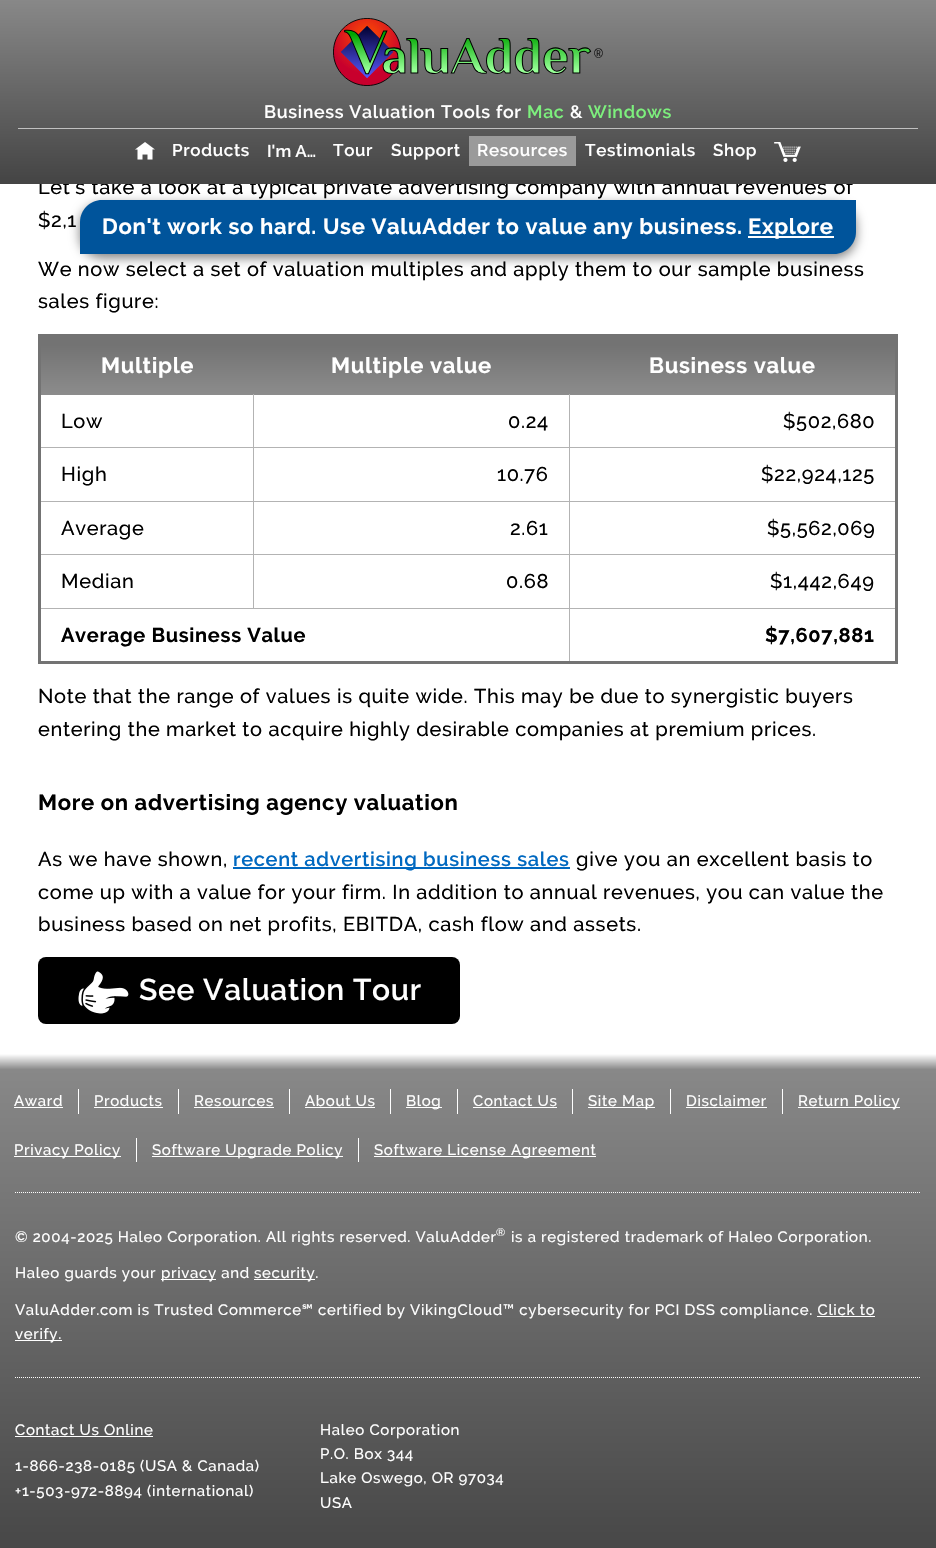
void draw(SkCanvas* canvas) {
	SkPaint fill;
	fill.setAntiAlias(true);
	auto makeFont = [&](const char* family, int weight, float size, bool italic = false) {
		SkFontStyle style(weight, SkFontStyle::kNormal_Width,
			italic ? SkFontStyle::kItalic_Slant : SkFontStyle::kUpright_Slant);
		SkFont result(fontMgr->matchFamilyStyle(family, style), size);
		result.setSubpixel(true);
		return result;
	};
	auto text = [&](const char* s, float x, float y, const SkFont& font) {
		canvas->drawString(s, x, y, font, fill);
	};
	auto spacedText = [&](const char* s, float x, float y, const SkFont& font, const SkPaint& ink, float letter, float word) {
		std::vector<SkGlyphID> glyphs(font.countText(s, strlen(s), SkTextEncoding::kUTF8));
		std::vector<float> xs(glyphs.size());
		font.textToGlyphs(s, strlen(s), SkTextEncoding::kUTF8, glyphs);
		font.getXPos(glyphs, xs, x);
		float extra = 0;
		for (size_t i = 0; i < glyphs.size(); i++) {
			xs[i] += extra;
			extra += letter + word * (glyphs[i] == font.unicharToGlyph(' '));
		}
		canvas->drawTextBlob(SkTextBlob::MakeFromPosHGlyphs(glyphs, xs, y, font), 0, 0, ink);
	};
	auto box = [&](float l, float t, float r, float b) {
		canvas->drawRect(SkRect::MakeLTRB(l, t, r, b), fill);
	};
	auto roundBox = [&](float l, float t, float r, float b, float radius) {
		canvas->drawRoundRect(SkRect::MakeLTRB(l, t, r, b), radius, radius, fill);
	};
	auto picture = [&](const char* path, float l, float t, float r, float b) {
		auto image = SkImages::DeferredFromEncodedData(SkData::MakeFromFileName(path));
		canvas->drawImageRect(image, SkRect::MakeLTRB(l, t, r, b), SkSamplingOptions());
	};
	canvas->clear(0xFFFFFFFF);
	fill.setColor(0xFF737373);
	box(38, 334, 898, 337);
	fill.setColor(0xFFB3B3B3);
	box(569, 447, 897, 448);
	box(569, 501, 897, 502);
	box(569, 554, 897, 555);
	box(569, 608, 897, 609);
	fill.setColor(0xFF737373);
	box(895, 334, 898, 664);
	fill.setColor(0xFFB3B3B3);
	box(569, 608, 570, 663);
	fill.setColor(0xFF737373);
	box(38, 661, 898, 664);
	fill.setColor(0xFFB3B3B3);
	box(39, 608, 570, 609);
	box(569, 554, 570, 609);
	box(253, 554, 570, 555);
	box(569, 501, 570, 555);
	box(253, 501, 570, 502);
	box(569, 447, 570, 502);
	box(253, 447, 570, 448);
	box(253, 554, 254, 609);
	box(39, 554, 254, 555);
	box(253, 501, 254, 555);
	box(39, 501, 254, 502);
	box(253, 447, 254, 502);
	box(39, 447, 254, 448);
	fill.setColor(0xFF737373);
	box(38, 334, 41, 664);
	{
		const SkColor colors[] = {0xFF737373, 0xFF8C8C8C};
		const float stops[] = {0.17f, 1};
		const SkPoint ends[] = {{469, 335}, {469, 395}};
		fill.setShader(SkGradientShader::MakeLinear(ends, colors, stops, 2, SkTileMode::kClamp));
		fill.setAlpha(255);
	}
	box(41, 337, 895, 395);
	fill.setShader(nullptr);
	fill.setColor(0xFFB3B3B3);
	box(253, 394, 254, 448);
	box(569, 394, 570, 448);
	fill.setColor(0xFF0068C0);
	box(233, 867, 570, 869);
	fill.setColor(0xFF000000);
	roundBox(38, 957, 460, 1024, 8);
	picture("image3.png", 78, 971, 129, 1014);
	fill.setColor(0xFF808080);
	fill.setMaskFilter(SkMaskFilter::MakeBlur(kNormal_SkBlurStyle, 5.5f));
	canvas->drawRoundRect(SkRect::MakeLTRB(80, 204, 856, 258), 22, 22, fill);
	fill.setMaskFilter(nullptr);
	fill.setColor(0xFF00549B);
	canvas->drawPath(SkPathBuilder().moveTo(102, 200).lineTo(856, 200).lineTo(856, 232).cubicTo(856, 244, 846, 254, 834, 254).lineTo(80, 254).lineTo(80, 222).cubicTo(80, 210, 90, 200, 102, 200).close().detach(), fill);
	fill.setColor(0xFFFFFFFF);
	box(748, 236, 834, 238);
	{
		const SkColor colors[] = {0xFFFFFFFF, 0xFF888888, 0xFF444444};
		const float stops[] = {0, 0.03f, 1};
		const SkPoint ends[] = {{468, 1054}, {468, 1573}};
		fill.setShader(SkGradientShader::MakeLinear(ends, colors, stops, 3, SkTileMode::kClamp));
		fill.setAlpha(255);
	}
	box(0, 1054, 936, 1548);
	fill.setShader(nullptr);
	fill.setColor(0xFFFFFFFF);
	box(14, 1107, 63, 1108);
	box(78, 1089, 79, 1114);
	box(94, 1107, 163, 1108);
	box(178, 1089, 179, 1114);
	box(194, 1107, 274, 1108);
	box(289, 1089, 290, 1114);
	box(305, 1107, 375, 1108);
	box(390, 1089, 391, 1114);
	box(406, 1107, 442, 1108);
	box(457, 1089, 458, 1114);
	box(473, 1107, 557, 1108);
	box(572, 1089, 573, 1114);
	box(588, 1107, 655, 1108);
	box(670, 1089, 671, 1114);
	box(686, 1107, 767, 1108);
	box(782, 1089, 783, 1114);
	box(798, 1107, 900, 1108);
	box(14, 1156, 121, 1157);
	box(136, 1138, 137, 1162);
	box(152, 1156, 343, 1157);
	box(358, 1138, 359, 1162);
	box(374, 1156, 596, 1157);
	fill.setStyle(SkPaint::kStroke_Style);
	fill.setStrokeWidth(1);
	fill.setPathEffect(SkDashPathEffect::Make({{1, 1}}, 0));
	canvas->drawPath(SkPathBuilder().moveTo(15, 1192.5f).lineTo(921, 1192.5f).detach(), fill);
	fill.setPathEffect(nullptr);
	fill.setStyle(SkPaint::kFill_Style);
	box(161, 1279, 216, 1280);
	box(254, 1279, 315, 1280);
	box(817, 1316, 875, 1317);
	box(15, 1340, 62, 1341);
	fill.setStyle(SkPaint::kStroke_Style);
	fill.setPathEffect(SkDashPathEffect::Make({{1, 1}}, 0));
	canvas->drawPath(SkPathBuilder().moveTo(15, 1377.5f).lineTo(921, 1377.5f).detach(), fill);
	fill.setPathEffect(nullptr);
	fill.setStyle(SkPaint::kFill_Style);
	box(15, 1436, 153, 1437);
	auto font1 = makeFont("Raleway", 500, 20);
	fill.setColor(0xFF000000);
	spacedText("Let’s take a look at a typical private advertising company with annual revenues of", 38, 194, font1, fill, 0.67f, 0);
	{
		const SkColor colors[] = {0xFF888888, 0xFF444444};
		const float stops[] = {0, 1};
		const SkPoint ends[] = {{468, 0}, {468, 184}};
		fill.setShader(SkGradientShader::MakeLinear(ends, colors, stops, 2, SkTileMode::kClamp));
		fill.setAlpha(255);
	}
	box(0, 0, 936, 184);
	fill.setShader(nullptr);
	fill.setColor(0xFF9A9A9A);
	box(469, 136, 576, 166);
	auto font2 = makeFont("Raleway", 600, 17);
	fill.setColor(0xFFFFFFFF);
	spacedText("Resources", 477, 156, font2, fill, 0.67f, 0);
	text("I'm A…", 267, 157, font2);
	picture("image2.png", 774, 142, 801, 162);
	spacedText("Shop", 713, 156, font2, fill, 0.67f, 0);
	spacedText("Testimonials", 585, 156, font2, fill, 0.67f, 0);
	spacedText("Support", 391, 156, font2, fill, 0.67f, 0);
	spacedText("Tour", 333, 156, font2, fill, 0.67f, 0);
	spacedText("Products", 172, 156, font2, fill, 0.67f, 0);
	picture("image1.png", 135, 142, 155, 160);
	fill.setColor(0xFFC0C0C0);
	box(18, 128, 918, 129);
	auto font3 = makeFont("Raleway", 600, 17.8f);
	fill.setColor(0xFF7DF07D);
	spacedText("Windows", 588, 118, font3, fill, 0.67f, 0);
	fill.setColor(0xFFFFFFFF);
	spacedText("&", 570, 118, font3, fill, 0.67f, 0);
	fill.setColor(0xFF7DF07D);
	spacedText("Mac", 527, 118, font3, fill, 0.67f, 0);
	fill.setColor(0xFFFFFFFF);
	spacedText("Business Valuation Tools for", 264, 118, font3, fill, 0.67f, 0);
	picture("image0.png", 333, 18, 603, 86);
	fill.setColor(0xFF000000);
	spacedText("$2,1", 38, 227, font1, fill, 0.67f, 0);
	spacedText("We now select a set of valuation multiples and apply them to our sample business", 38, 276, font1, fill, 0.67f, 0);
	spacedText("sales figure:", 38, 308, font1, fill, 0.67f, 0);
	auto font4 = makeFont("Raleway", 700, 22);
	fill.setColor(0xFFFFFFFF);
	spacedText("Multiple", 101, 373, font4, fill, 0.67f, 0);
	spacedText("Multiple value", 331, 373, font4, fill, 0.67f, 0);
	spacedText("Business value", 649, 373, font4, fill, 0.67f, 0);
	fill.setColor(0xFF000000);
	spacedText("Low", 61, 428, font1, fill, 0.67f, 0);
	spacedText("0.24", 508, 428, font1, fill, 0.67f, 0);
	spacedText("$502,680", 783, 428, font1, fill, 0.67f, 0);
	spacedText("High", 61, 481, font1, fill, 0.67f, 0);
	spacedText("10.76", 497, 481, font1, fill, 0.67f, 0);
	spacedText("$22,924,125", 761, 481, font1, fill, 0.67f, 0);
	spacedText("Average", 61, 535, font1, fill, 0.67f, 0);
	spacedText("2.61", 510, 535, font1, fill, 0.67f, 0);
	spacedText("$5,562,069", 767, 535, font1, fill, 0.67f, 0);
	spacedText("Median", 61, 588, font1, fill, 0.67f, 0);
	spacedText("0.68", 506, 588, font1, fill, 0.67f, 0);
	spacedText("$1,442,649", 770, 588, font1, fill, 0.67f, 0);
	auto font5 = makeFont("Raleway", 700, 20);
	spacedText("Average Business Value", 61, 642, font5, fill, 0.67f, 0);
	spacedText("$7,607,881", 765, 642, font5, fill, 0.67f, 0);
	spacedText("Note that the range of values is quite wide. This may be due to synergistic buyers", 38, 703, font1, fill, 0.67f, 0);
	spacedText("entering the market to acquire highly desirable companies at premium prices.", 38, 736, font1, fill, 0.67f, 0);
	spacedText("More on advertising agency valuation", 38, 810, font4, fill, 0.67f, 0);
	spacedText("As we have shown,", 38, 866, font1, fill, 0.67f, 0);
	auto font6 = makeFont("Raleway", 600, 20);
	fill.setColor(0xFF0068C0);
	spacedText("recent advertising business sales", 233, 866, font6, fill, 0.67f, 0);
	fill.setColor(0xFF000000);
	spacedText("give you an excellent basis to", 576, 866, font1, fill, 0.67f, 0);
	spacedText("come up with a value for your firm. In addition to annual revenues, you can value the", 38, 899, font1, fill, 0.67f, 0);
	spacedText("business based on net profits, EBITDA, cash flow and assets.", 38, 931, font1, fill, 0.67f, 0);
	auto font7 = makeFont("Raleway", 600, 30);
	fill.setColor(0xFFFFFFFF);
	spacedText("See Valuation Tour", 139, 1000, font7, fill, 0.67f, 0);
	spacedText("Don't work so hard. Use ValuAdder to value any business.", 102, 234, font4, fill, 0.67f, 0);
	spacedText("Explore", 748, 234, font4, fill, 0.67f, 0);
	auto font8 = makeFont("Raleway", 500, 15);
	spacedText("Award", 14, 1106, font8, fill, 0.67f, 0);
	spacedText("Products", 94, 1106, font8, fill, 0.67f, 0);
	spacedText("Resources", 194, 1106, font8, fill, 0.67f, 0);
	spacedText("About Us", 305, 1106, font8, fill, 0.67f, 0);
	spacedText("Blog", 406, 1106, font8, fill, 0.67f, 0);
	spacedText("Contact Us", 473, 1106, font8, fill, 0.67f, 0);
	spacedText("Site Map", 588, 1106, font8, fill, 0.67f, 0);
	spacedText("Disclaimer", 686, 1106, font8, fill, 0.67f, 0);
	spacedText("Return Policy", 798, 1106, font8, fill, 0.67f, 0);
	spacedText("Privacy Policy", 14, 1155, font8, fill, 0.67f, 0);
	spacedText("Software Upgrade Policy", 152, 1155, font8, fill, 0.67f, 0);
	spacedText("Software License Agreement", 374, 1155, font8, fill, 0.67f, 0);
	spacedText("© 2004-2025 Haleo Corporation. All rights reserved. ValuAdder", 15, 1242, font8, fill, 0.67f, 0);
	auto font9 = makeFont("Raleway", 500, 11);
	spacedText("®", 496, 1236, font9, fill, 0.67f, 0);
	spacedText("is a registered trademark of Haleo Corporation.", 511, 1242, font8, fill, 0.67f, 0);
	spacedText("Haleo guards your", 15, 1278, font8, fill, 0.67f, 0);
	spacedText("privacy and", 161, 1278, font8, fill, 0.67f, 0);
	spacedText("security.", 254, 1278, font8, fill, 0.67f, 0);
	spacedText("ValuAdder.com is Trusted Commerce℠ certified by VikingCloud™ cybersecurity for PCI DSS compliance. Click to", 15, 1315, font8, fill, 0.67f, 0);
	spacedText("verify.", 15, 1339, font8, fill, 0.67f, 0);
	spacedText("Contact Us Online", 15, 1435, font8, fill, 0.67f, 0);
	spacedText("1-866-238-0185 (USA & Canada)", 15, 1471, font8, fill, 0.67f, 0);
	spacedText("+1-503-972-8894 (international)", 15, 1496, font8, fill, 0.67f, 0);
	spacedText("Haleo Corporation", 320, 1435, font8, fill, 0.67f, 0);
	spacedText("P.O. Box 344", 320, 1459, font8, fill, 0.67f, 0);
	spacedText("Lake Oswego, OR 97034", 320, 1483, font8, fill, 0.67f, 0);
	spacedText("USA", 320, 1508, font8, fill, 0.67f, 0);
}
